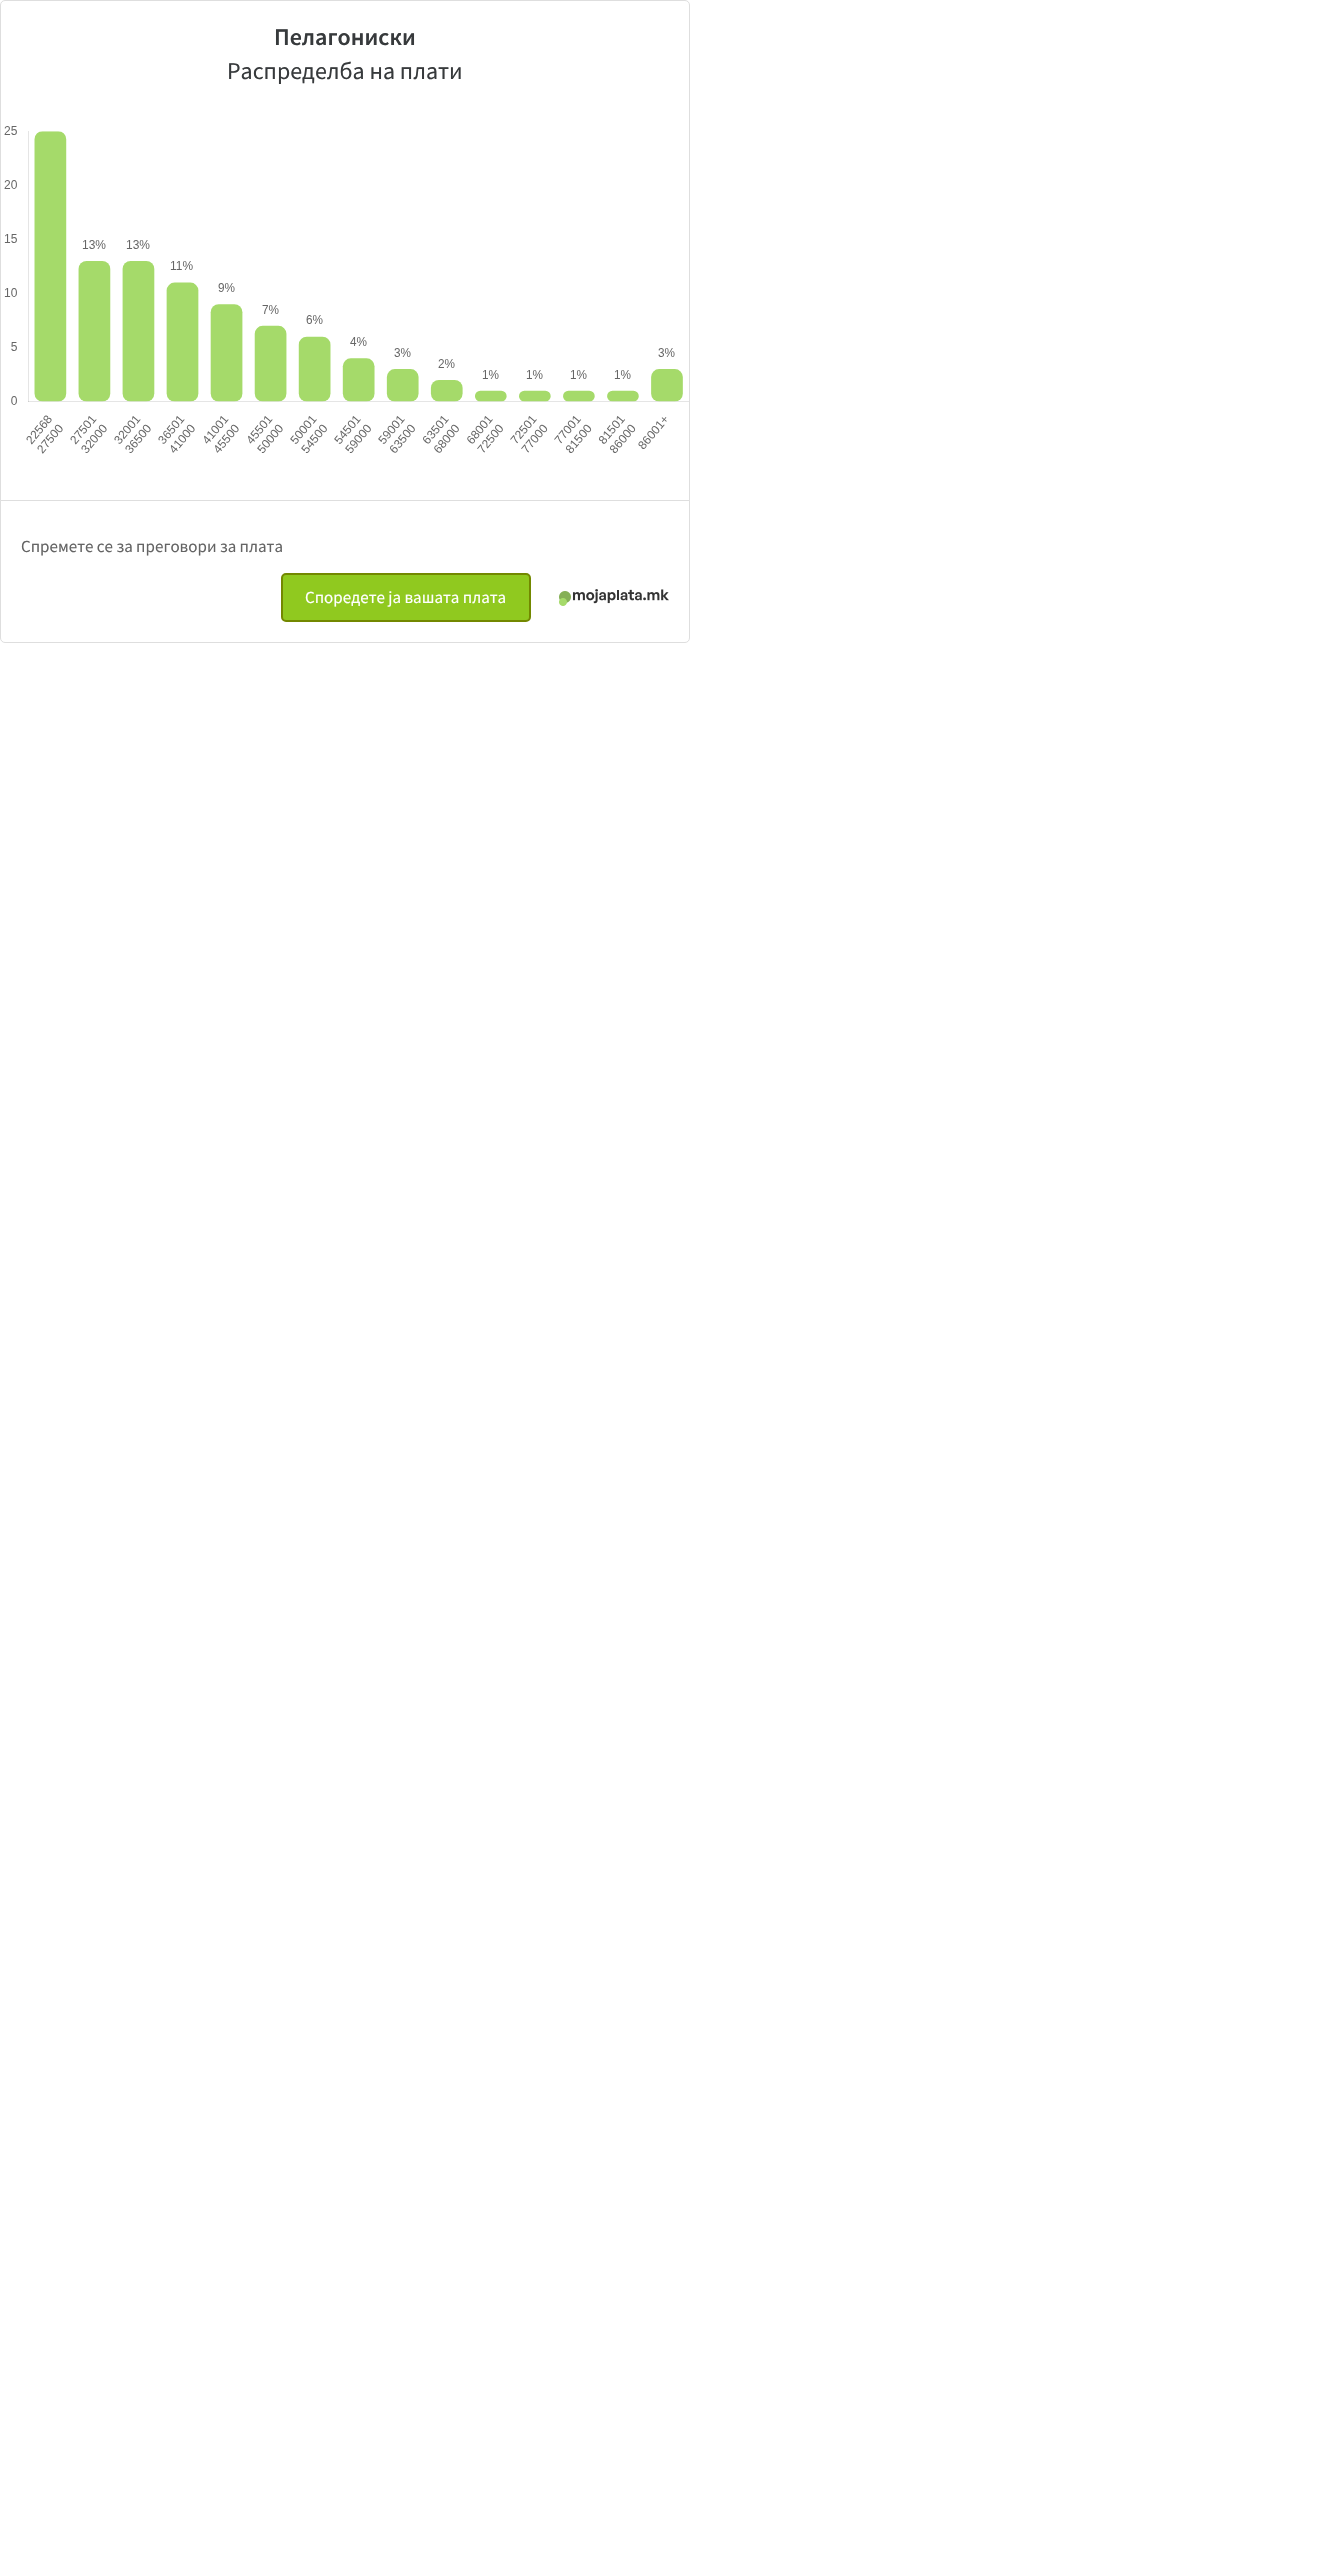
void draw(SkCanvas* canvas) {
	SkPaint fill;
	fill.setAntiAlias(true);
	auto makeFont = [&](const char* family, int weight, float size, bool italic = false) {
		SkFontStyle style(weight, SkFontStyle::kNormal_Width,
			italic ? SkFontStyle::kItalic_Slant : SkFontStyle::kUpright_Slant);
		SkFont result(fontMgr->matchFamilyStyle(family, style), size);
		result.setSubpixel(true);
		return result;
	};
	auto text = [&](const char* s, float x, float y, const SkFont& font) {
		canvas->drawString(s, x, y, font, fill);
	};
	auto picture = [&](const char* path, float l, float t, float r, float b) {
		auto image = SkImages::DeferredFromEncodedData(SkData::MakeFromFileName(path));
		canvas->drawImageRect(image, SkRect::MakeLTRB(l, t, r, b), SkSamplingOptions());
	};
	canvas->clear(0xFFFFFFFF);
	fill.setStyle(SkPaint::kStroke_Style);
	fill.setStrokeWidth(1);
	fill.setColor(0xFFDEDEDE);
	canvas->drawPath(SkPathBuilder().moveTo(5, 0.5f).lineTo(685, 0.5f).cubicTo(687.5f, 0.5f, 689.5f, 2.5f, 689.5f, 5).lineTo(689.5f, 500.5f).lineTo(0.5f, 500.5f).lineTo(0.5f, 5).cubicTo(0.5f, 2.5f, 2.5f, 0.5f, 5, 0.5f).close().detach(), fill);
	picture("image0.png", 4, 126, 689, 454);
	canvas->drawPath(SkPathBuilder().moveTo(0.5f, 500.5f).lineTo(689.5f, 500.5f).lineTo(689.5f, 638).cubicTo(689.5f, 640.5f, 687.5f, 642.5f, 685, 642.5f).lineTo(5, 642.5f).cubicTo(2.5f, 642.5f, 0.5f, 640.5f, 0.5f, 638).close().detach(), fill);
	fill.setStyle(SkPaint::kFill_Style);
	fill.setColor(0xFF90C91F);
	canvas->drawRoundRect(SkRect::MakeLTRB(282, 574, 530, 621), 4, 4, fill);
	fill.setStyle(SkPaint::kStroke_Style);
	fill.setStrokeWidth(2);
	fill.setColor(0xFF738800);
	canvas->drawRoundRect(SkRect::MakeLTRB(282, 574, 530, 621), 4, 4, fill);
	picture("image1.png", 559, 589, 669, 606);
	auto font1 = makeFont("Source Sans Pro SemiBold", 600, 24);
	fill.setStyle(SkPaint::kFill_Style);
	fill.setColor(0xFF373A3C);
	text("Пелагониски", 274, 45, font1);
	auto font2 = makeFont("Source Sans Pro", 400, 24);
	text("Распределба на плати", 227, 79, font2);
	auto font3 = makeFont("Source Sans Pro", 400, 17);
	fill.setColor(0xFF646464);
	text("Спремете се за преговори за плата", 21, 552, font3);
	fill.setColor(0xFFFFFFFF);
	text("Споредете ја вашата плата", 305, 603, font3);
}
